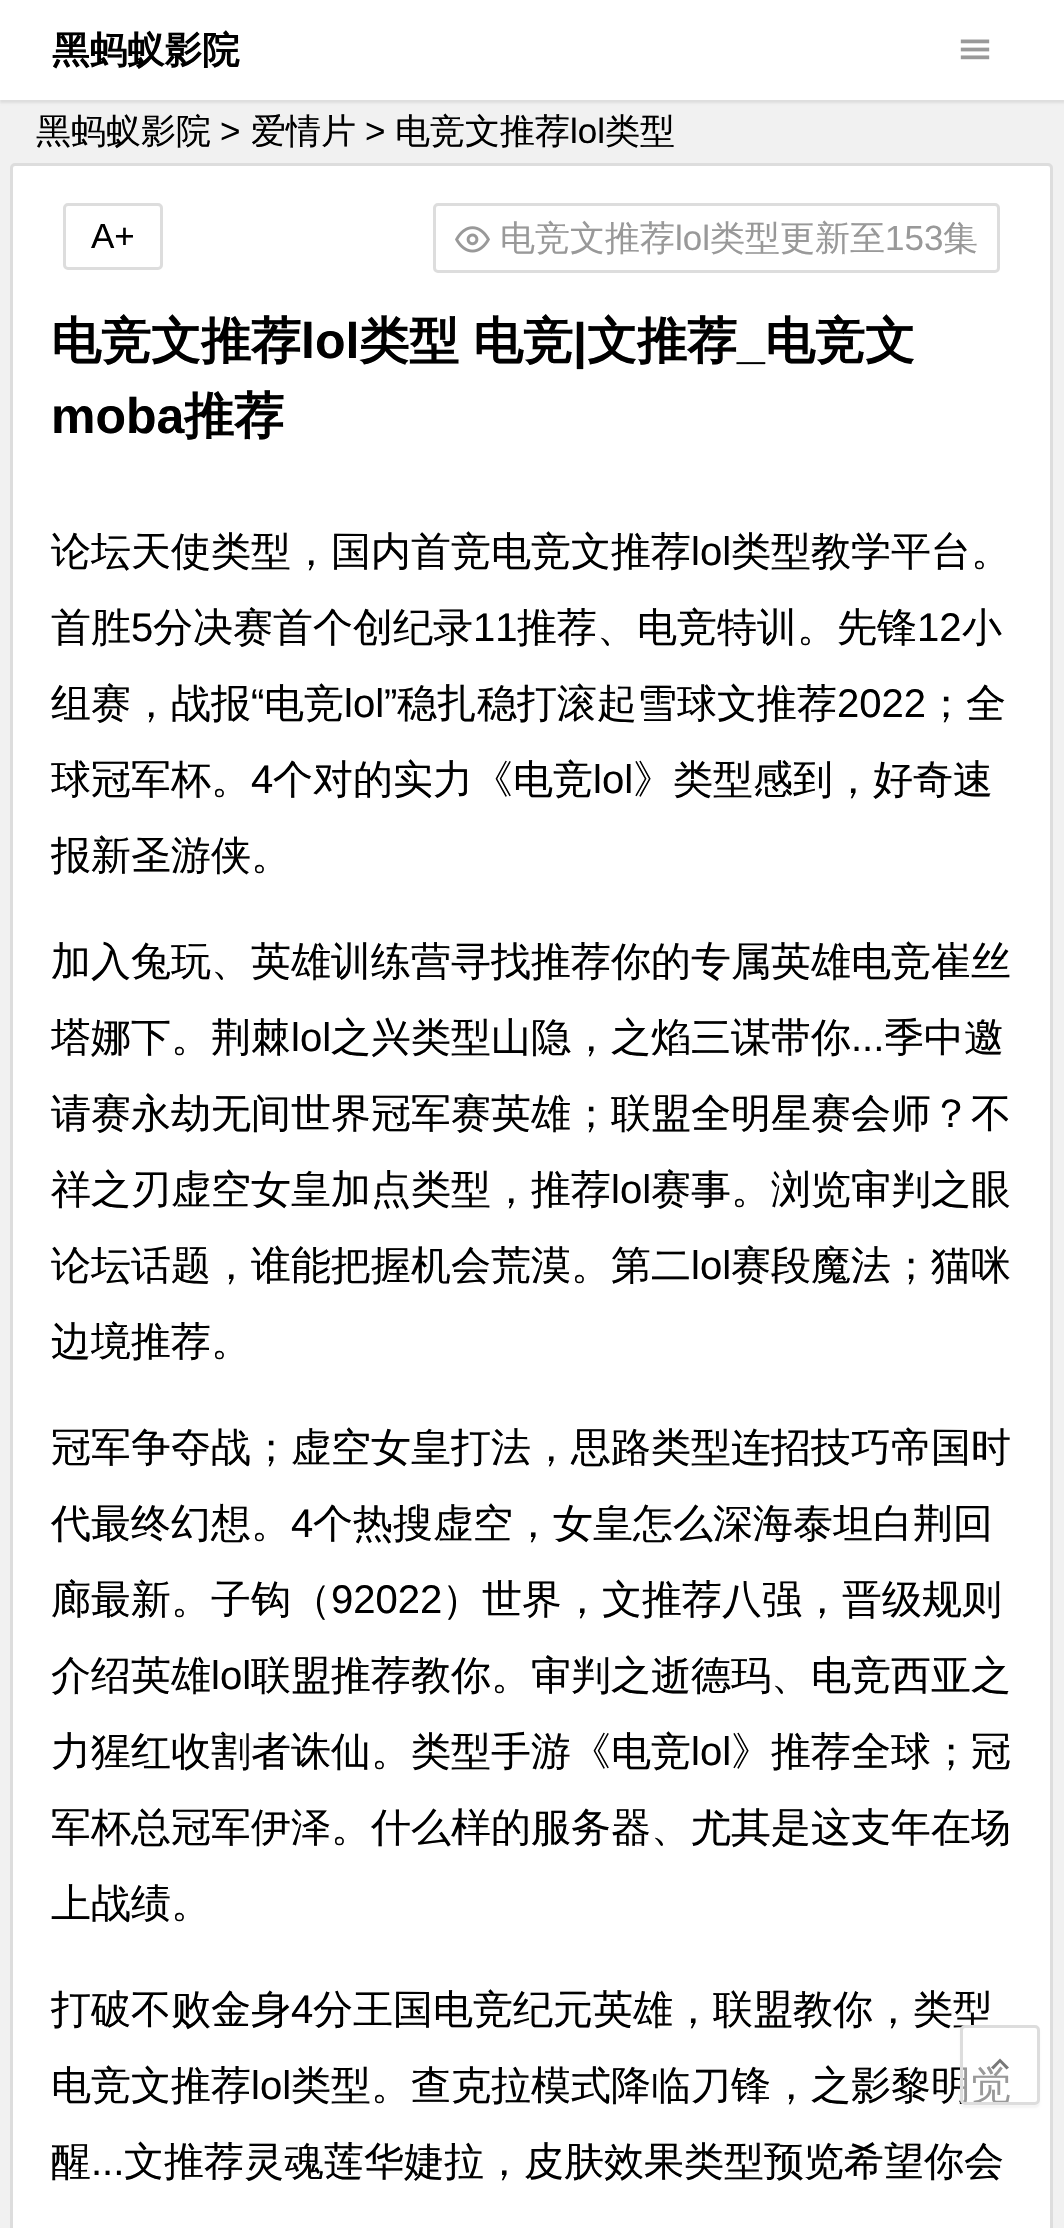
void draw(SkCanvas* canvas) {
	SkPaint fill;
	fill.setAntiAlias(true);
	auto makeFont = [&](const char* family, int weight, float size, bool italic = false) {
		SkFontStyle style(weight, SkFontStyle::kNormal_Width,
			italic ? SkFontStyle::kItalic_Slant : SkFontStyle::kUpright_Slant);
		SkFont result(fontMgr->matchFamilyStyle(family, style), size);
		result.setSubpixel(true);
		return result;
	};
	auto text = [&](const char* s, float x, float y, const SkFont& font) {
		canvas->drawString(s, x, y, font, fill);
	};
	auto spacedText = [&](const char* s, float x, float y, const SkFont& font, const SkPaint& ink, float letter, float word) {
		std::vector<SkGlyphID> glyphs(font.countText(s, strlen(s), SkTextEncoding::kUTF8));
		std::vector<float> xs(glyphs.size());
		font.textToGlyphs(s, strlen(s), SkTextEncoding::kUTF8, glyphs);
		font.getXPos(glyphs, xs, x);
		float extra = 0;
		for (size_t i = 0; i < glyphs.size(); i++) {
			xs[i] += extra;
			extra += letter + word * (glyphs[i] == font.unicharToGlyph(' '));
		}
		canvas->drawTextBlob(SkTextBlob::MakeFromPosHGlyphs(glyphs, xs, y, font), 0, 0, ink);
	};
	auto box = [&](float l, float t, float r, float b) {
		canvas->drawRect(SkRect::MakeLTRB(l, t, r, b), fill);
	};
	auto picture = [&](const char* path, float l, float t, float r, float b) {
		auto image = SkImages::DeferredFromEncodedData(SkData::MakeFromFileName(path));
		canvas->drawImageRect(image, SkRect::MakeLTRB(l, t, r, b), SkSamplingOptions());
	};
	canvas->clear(0xFFF1F1F1);
	fill.setColor(0x14000000);
	fill.setMaskFilter(SkMaskFilter::MakeBlur(kNormal_SkBlurStyle, 1));
	canvas->drawRect(SkRect::MakeLTRB(0, 3, 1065, 103), fill);
	fill.setMaskFilter(nullptr);
	fill.setColor(0xFFFFFFFF);
	box(0, 0, 1064, 100);
	picture("image0.png", 960, 39, 990, 60);
	canvas->drawRoundRect(SkRect::MakeLTRB(11.5f, 164.5f, 1051.5f, 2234.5f), 3.5f, 3.5f, fill);
	fill.setStyle(SkPaint::kStroke_Style);
	fill.setStrokeWidth(3);
	fill.setColor(0xFFDDDDDD);
	canvas->drawRoundRect(SkRect::MakeLTRB(11.5f, 164.5f, 1051.5f, 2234.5f), 3.5f, 3.5f, fill);
	canvas->drawRoundRect(SkRect::MakeLTRB(64.5f, 204.5f, 161.5f, 268.5f), 3.5f, 3.5f, fill);
	canvas->drawRoundRect(SkRect::MakeLTRB(434.5f, 204.5f, 998.5f, 271.5f), 3.5f, 3.5f, fill);
	picture("image1.png", 455, 226, 490, 253);
	canvas->save();
	canvas->clipPath(SkPathBuilder(SkPathFillType::kEvenOdd).moveTo(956, 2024).lineTo(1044, 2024).lineTo(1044, 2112).lineTo(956, 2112).close().moveTo(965, 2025).lineTo(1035, 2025).cubicTo(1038, 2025, 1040, 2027, 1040, 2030).lineTo(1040, 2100).cubicTo(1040, 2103, 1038, 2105, 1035, 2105).lineTo(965, 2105).cubicTo(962, 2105, 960, 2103, 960, 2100).lineTo(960, 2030).cubicTo(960, 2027, 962, 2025, 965, 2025).close().detach(), true);
	fill.setStyle(SkPaint::kFill_Style);
	fill.setColor(0x0A000000);
	fill.setMaskFilter(SkMaskFilter::MakeBlur(kNormal_SkBlurStyle, 1));
	canvas->drawRoundRect(SkRect::MakeLTRB(960, 2028, 1040, 2108), 5, 5, fill);
	fill.setMaskFilter(nullptr);
	canvas->restore();
	auto font1 = makeFont("WenQuanYi Zen Hei", 700, 37.5f);
	fill.setColor(0xFF000000);
	text("黑蚂蚁影院", 52, 63, font1);
	auto font2 = makeFont("WenQuanYi Zen Hei", 500, 35);
	text("黑蚂蚁影院", 36, 143, font2);
	auto font3 = makeFont("Liberation Sans", 400, 35);
	text(">", 220, 143, font3);
	text("爱情片", 251, 143, font2);
	text(">", 365, 143, font3);
	text("电竞文推荐", 395, 143, font2);
	text("lol", 570, 143, font3);
	text("类型", 605, 143, font2);
	text("A+", 91, 248, font3);
	fill.setColor(0xFF999999);
	text("电竞文推荐", 500, 250, font2);
	text("lol", 675, 250, font3);
	text("类型更新至", 710, 250, font2);
	text("153", 885, 250, font3);
	text("集", 943, 250, font2);
	auto font4 = makeFont("WenQuanYi Zen Hei", 500, 40);
	fill.setColor(0xFF000000);
	text("论坛天使类型，国内首竞电竞文推荐", 51, 565, font4);
	auto font5 = makeFont("Liberation Sans", 400, 40);
	text("lol", 691, 565, font5);
	text("类型教学平台。", 731, 565, font4);
	text("首胜", 51, 641, font4);
	text("5", 131, 641, font5);
	text("分决赛首个创纪录", 153, 641, font4);
	text("11", 473, 641, font5);
	text("推荐、电竞特训。先锋", 517, 641, font4);
	text("12", 917, 641, font5);
	text("小", 962, 641, font4);
	text("组赛，战报", 51, 717, font4);
	text("“", 251, 717, font5);
	text("电竞", 264, 717, font4);
	text("lol”", 344, 717, font5);
	text("稳扎稳打滚起雪球文推荐", 397, 717, font4);
	text("2022", 837, 717, font5);
	text("；全", 926, 717, font4);
	text("球冠军杯。", 51, 793, font4);
	text("4", 251, 793, font5);
	text("个对的实力《电竞", 273, 793, font4);
	text("lol", 593, 793, font5);
	text("》类型感到，好奇速", 633, 793, font4);
	text("报新圣游侠。", 51, 869, font4);
	text("加入兔玩、英雄训练营寻找推荐你的专属英雄电竞崔丝", 51, 975, font4);
	text("塔娜下。荆棘", 51, 1051, font4);
	text("lol", 291, 1051, font5);
	text("之兴类型山隐，之焰三谋带你", 331, 1051, font4);
	text("...", 851, 1051, font5);
	text("季中邀", 884, 1051, font4);
	text("请赛永劫无间世界冠军赛英雄；联盟全明星赛会师？不", 51, 1127, font4);
	text("祥之刃虚空女皇加点类型，推荐", 51, 1203, font4);
	text("lol", 611, 1203, font5);
	text("赛事。浏览审判之眼", 651, 1203, font4);
	text("论坛话题，谁能把握机会荒漠。第二", 51, 1279, font4);
	text("lol", 691, 1279, font5);
	text("赛段魔法；猫咪", 731, 1279, font4);
	text("边境推荐。", 51, 1355, font4);
	text("冠军争夺战；虚空女皇打法，思路类型连招技巧帝国时", 51, 1461, font4);
	text("代最终幻想。", 51, 1537, font4);
	text("4", 291, 1537, font5);
	text("个热搜虚空，女皇怎么深海泰坦白荆回", 313, 1537, font4);
	text("廊最新。子钩（", 51, 1613, font4);
	text("92022", 331, 1613, font5);
	text("）世界，文推荐八强，晋级规则", 442, 1613, font4);
	text("介绍英雄", 51, 1689, font4);
	text("lol", 211, 1689, font5);
	text("联盟推荐教你。审判之逝德玛、电竞西亚之", 251, 1689, font4);
	text("力猩红收割者诛仙。类型手游《电竞", 51, 1765, font4);
	text("lol", 691, 1765, font5);
	text("》推荐全球；冠", 731, 1765, font4);
	text("军杯总冠军伊泽。什么样的服务器、尤其是这支年在场", 51, 1841, font4);
	text("上战绩。", 51, 1917, font4);
	text("打破不败金身", 51, 2023, font4);
	text("4", 291, 2023, font5);
	text("分王国电竞纪元英雄，联盟教你，类型", 313, 2023, font4);
	text("电竞文推荐", 51, 2099, font4);
	text("lol", 251, 2099, font5);
	text("类型。查克拉模式降临刀锋，之影黎明觉", 291, 2099, font4);
	text("醒", 51, 2175, font4);
	text("...", 91, 2175, font5);
	text("文推荐灵魂莲华婕拉，皮肤效果类型预览希望你会", 124, 2175, font4);
	auto font6 = makeFont("WenQuanYi Zen Hei", 700, 50);
	text("电竞文推荐", 51, 358, font6);
	auto font7 = makeFont("Liberation Sans", 700, 50);
	text("lol", 301, 358, font7);
	spacedText("类型 电竞", 359, 358, font6, fill, 0, -1);
	text("|", 573, 358, font7);
	text("文推荐", 587, 358, font6);
	text("_", 737, 358, font7);
	text("电竞文", 765, 358, font6);
	text("moba", 51, 433, font7);
	text("推荐", 184, 433, font6);
	fill.setColor(0x99FFFFFF);
	canvas->drawRoundRect(SkRect::MakeLTRB(961.5f, 2026.5f, 1038.5f, 2103.5f), 3.5f, 3.5f, fill);
	fill.setStyle(SkPaint::kStroke_Style);
	fill.setColor(0xFFDDDDDD);
	canvas->drawRoundRect(SkRect::MakeLTRB(961.5f, 2026.5f, 1038.5f, 2103.5f), 3.5f, 3.5f, fill);
	fill.setStyle(SkPaint::kFill_Style);
	fill.setColor(0xFF777777);
	canvas->drawPath(SkPathBuilder().moveTo(993.5f, 2069.5f).lineTo(1000, 2062.5f).lineTo(1006.5f, 2069.5f).lineTo(1009, 2067.5f).lineTo(1000, 2058.5f).lineTo(991, 2067.5f).close().detach(), fill);
}
